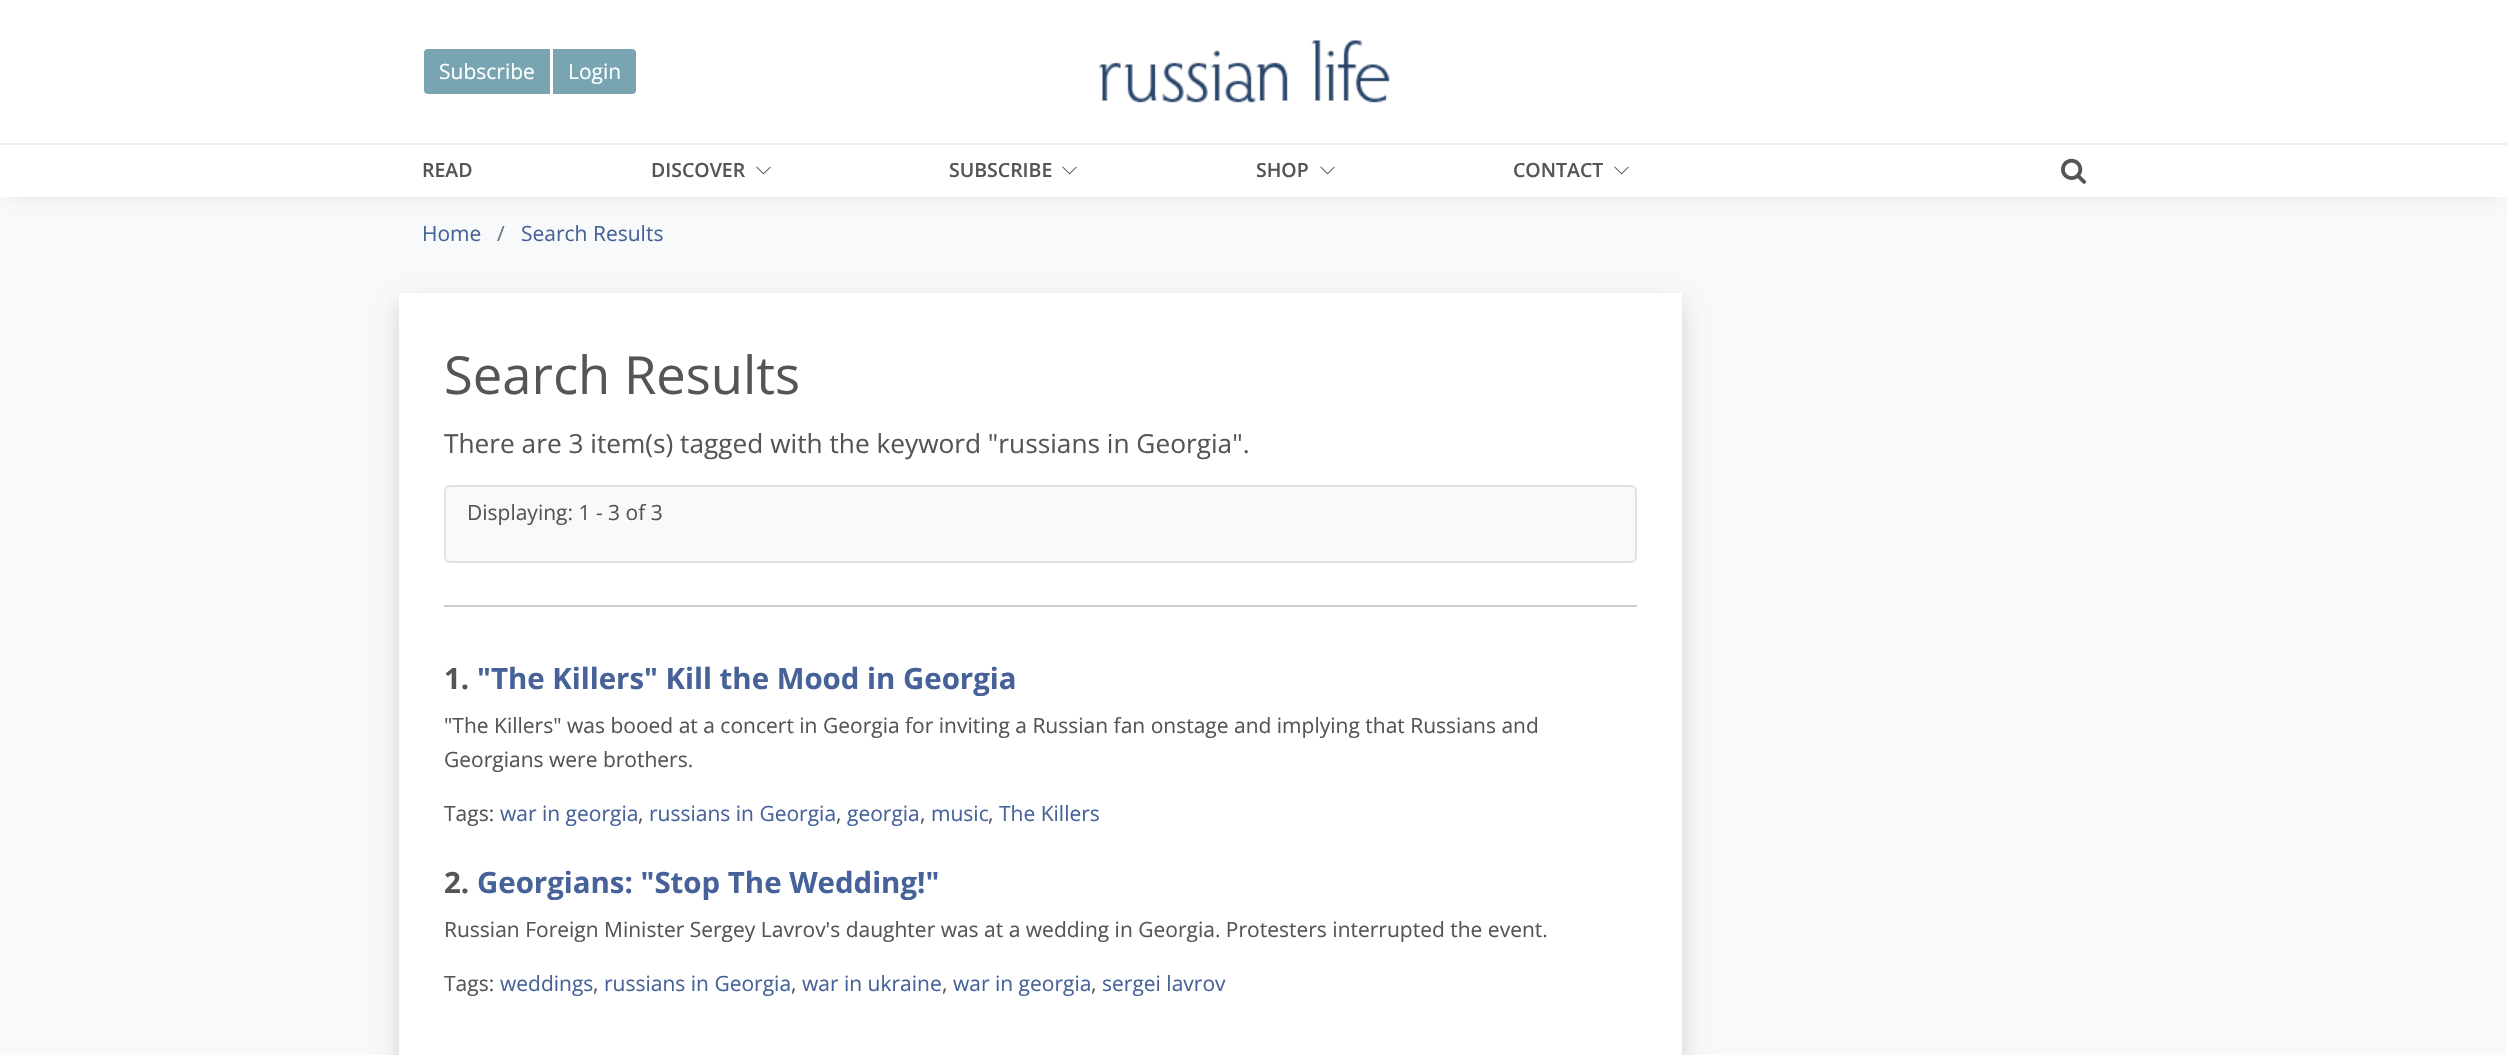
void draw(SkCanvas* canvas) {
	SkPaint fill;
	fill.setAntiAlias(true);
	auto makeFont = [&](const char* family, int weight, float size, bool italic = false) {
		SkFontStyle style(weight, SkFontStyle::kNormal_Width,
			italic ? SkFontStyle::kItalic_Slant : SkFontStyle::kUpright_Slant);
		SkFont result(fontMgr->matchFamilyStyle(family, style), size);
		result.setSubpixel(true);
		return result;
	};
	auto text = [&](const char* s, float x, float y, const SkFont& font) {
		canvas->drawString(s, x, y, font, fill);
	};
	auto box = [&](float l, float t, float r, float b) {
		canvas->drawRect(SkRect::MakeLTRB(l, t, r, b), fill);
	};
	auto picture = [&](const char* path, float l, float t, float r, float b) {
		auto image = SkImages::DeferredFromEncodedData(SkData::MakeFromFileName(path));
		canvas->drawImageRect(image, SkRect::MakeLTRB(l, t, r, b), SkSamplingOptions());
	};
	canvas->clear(0xFFF8F9FA);
	fill.setColor(0x1A000000);
	fill.setMaskFilter(SkMaskFilter::MakeBlur(kNormal_SkBlurStyle, 7.5f));
	canvas->drawRect(SkRect::MakeLTRB(9, 17, 2499, 195), fill);
	fill.setMaskFilter(nullptr);
	fill.setColor(0xFFFFFFFF);
	box(0, 0, 2507, 143);
	fill.setColor(0xFFECEDEF);
	box(0, 143, 2507, 145);
	fill.setColor(0xFF79A4B2);
	canvas->drawPath(SkPathBuilder().moveTo(428, 48).lineTo(551, 48).lineTo(551, 95).lineTo(428, 95).cubicTo(425, 95, 423, 93, 423, 90).lineTo(423, 53).cubicTo(423, 50, 425, 48, 428, 48).close().detach(), fill);
	fill.setStyle(SkPaint::kStroke_Style);
	fill.setStrokeWidth(2);
	fill.setColor(0xFFFFFFFF);
	canvas->drawPath(SkPathBuilder().moveTo(428, 48).lineTo(551, 48).lineTo(551, 95).lineTo(428, 95).cubicTo(425, 95, 423, 93, 423, 90).lineTo(423, 53).cubicTo(423, 50, 425, 48, 428, 48).close().detach(), fill);
	fill.setStyle(SkPaint::kFill_Style);
	fill.setColor(0xFF79A4B2);
	canvas->drawPath(SkPathBuilder().moveTo(552, 48).lineTo(632, 48).cubicTo(635, 48, 637, 50, 637, 53).lineTo(637, 90).cubicTo(637, 93, 635, 95, 632, 95).lineTo(552, 95).close().detach(), fill);
	fill.setStyle(SkPaint::kStroke_Style);
	fill.setColor(0xFFFFFFFF);
	canvas->drawPath(SkPathBuilder().moveTo(552, 48).lineTo(632, 48).cubicTo(635, 48, 637, 50, 637, 53).lineTo(637, 90).cubicTo(637, 93, 635, 95, 632, 95).lineTo(552, 95).close().detach(), fill);
	picture("image0.png", 1098, 40, 1390, 103);
	fill.setStyle(SkPaint::kFill_Style);
	box(0, 145, 2507, 197);
	picture("image1.png", 756, 166, 771, 175);
	picture("image1.png", 1062, 166, 1077, 175);
	picture("image1.png", 1320, 166, 1335, 175);
	picture("image1.png", 1614, 166, 1629, 175);
	picture("image2.png", 2061, 158, 2086, 184);
	fill.setColor(0x26000000);
	fill.setMaskFilter(SkMaskFilter::MakeBlur(kNormal_SkBlurStyle, 10.5f));
	canvas->drawRect(SkRect::MakeLTRB(399, 303, 1682, 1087), fill);
	fill.setMaskFilter(nullptr);
	fill.setColor(0xFFFFFFFF);
	box(399, 293, 1682, 1055);
	fill.setColor(0xFFF8F9FA);
	canvas->drawRoundRect(SkRect::MakeLTRB(445, 486, 1636, 562), 5, 5, fill);
	fill.setStyle(SkPaint::kStroke_Style);
	fill.setColor(0xFFDEE2E6);
	canvas->drawRoundRect(SkRect::MakeLTRB(445, 486, 1636, 562), 5, 5, fill);
	fill.setStyle(SkPaint::kFill_Style);
	fill.setColor(0xFFCCCCCC);
	box(444, 605, 1637, 607);
	auto font1 = makeFont("Open Sans", 400, 21);
	fill.setColor(0xFFFFFFFF);
	text("Subscribe", 439, 79, font1);
	text("Login", 568, 79, font1);
	auto font2 = makeFont("Open Sans", 600, 19.5f);
	fill.setColor(0xFF555555);
	text("READ", 422, 177, font2);
	text("DISCOVER", 651, 177, font2);
	text("SUBSCRIBE", 949, 177, font2);
	text("SHOP", 1256, 177, font2);
	text("CONTACT", 1513, 177, font2);
	fill.setColor(0xFF466299);
	text("Home", 422, 241, font1);
	fill.setColor(0xFF6C757D);
	text("/", 497, 241, font1);
	fill.setColor(0xFF466299);
	text("Search Results", 521, 241, font1);
	auto font3 = makeFont("Open Sans", 400, 52.5f);
	fill.setColor(0xFF555555);
	text("Search Results", 444, 394, font3);
	auto font4 = makeFont("Open Sans", 400, 26.25f);
	text("There are 3 item(s) tagged with the keyword \"russians in Georgia\".", 444, 453, font4);
	text("Displaying: 1 - 3 of 3", 467, 520, font1);
	auto font5 = makeFont("Open Sans", 700, 29.4f);
	text("1.", 444, 689, font5);
	fill.setColor(0xFF466299);
	text("\"The Killers\" Kill the Mood in Georgia", 477, 689, font5);
	fill.setColor(0xFF555555);
	text("\"The Killers\" was booed at a concert in Georgia for inviting a Russian fan onstage and implying that Russians and", 444, 733, font1);
	text("Georgians were brothers.", 444, 767, font1);
	text("Tags:", 444, 821, font1);
	fill.setColor(0xFF466299);
	text("war in georgia", 500, 821, font1);
	fill.setColor(0xFF555555);
	text(",", 638, 821, font1);
	fill.setColor(0xFF466299);
	text("russians in Georgia", 649, 821, font1);
	fill.setColor(0xFF555555);
	text(",", 836, 821, font1);
	fill.setColor(0xFF466299);
	text("georgia", 847, 821, font1);
	fill.setColor(0xFF555555);
	text(",", 920, 821, font1);
	fill.setColor(0xFF466299);
	text("music", 931, 821, font1);
	fill.setColor(0xFF555555);
	text(",", 988, 821, font1);
	fill.setColor(0xFF466299);
	text("The Killers", 999, 821, font1);
	fill.setColor(0xFF555555);
	text("2.", 444, 893, font5);
	fill.setColor(0xFF466299);
	text("Georgians: \"Stop The Wedding!\"", 477, 893, font5);
	fill.setColor(0xFF555555);
	text("Russian Foreign Minister Sergey Lavrov's daughter was at a wedding in Georgia. Protesters interrupted the event.", 444, 937, font1);
	text("Tags:", 444, 991, font1);
	fill.setColor(0xFF466299);
	text("weddings", 500, 991, font1);
	fill.setColor(0xFF555555);
	text(",", 593, 991, font1);
	fill.setColor(0xFF466299);
	text("russians in Georgia", 604, 991, font1);
	fill.setColor(0xFF555555);
	text(",", 791, 991, font1);
	fill.setColor(0xFF466299);
	text("war in ukraine", 802, 991, font1);
	fill.setColor(0xFF555555);
	text(",", 942, 991, font1);
	fill.setColor(0xFF466299);
	text("war in georgia", 953, 991, font1);
	fill.setColor(0xFF555555);
	text(",", 1091, 991, font1);
	fill.setColor(0xFF466299);
	text("sergei lavrov", 1102, 991, font1);
}
